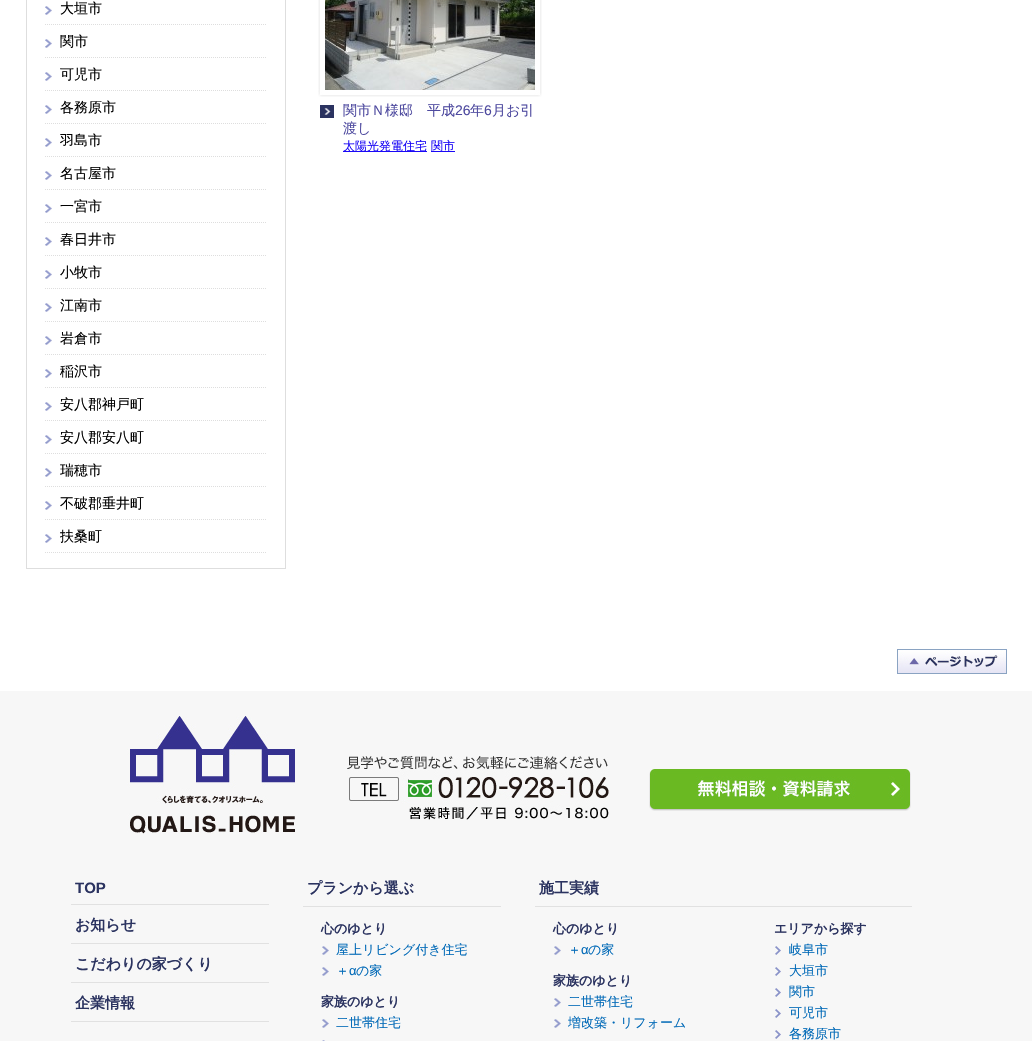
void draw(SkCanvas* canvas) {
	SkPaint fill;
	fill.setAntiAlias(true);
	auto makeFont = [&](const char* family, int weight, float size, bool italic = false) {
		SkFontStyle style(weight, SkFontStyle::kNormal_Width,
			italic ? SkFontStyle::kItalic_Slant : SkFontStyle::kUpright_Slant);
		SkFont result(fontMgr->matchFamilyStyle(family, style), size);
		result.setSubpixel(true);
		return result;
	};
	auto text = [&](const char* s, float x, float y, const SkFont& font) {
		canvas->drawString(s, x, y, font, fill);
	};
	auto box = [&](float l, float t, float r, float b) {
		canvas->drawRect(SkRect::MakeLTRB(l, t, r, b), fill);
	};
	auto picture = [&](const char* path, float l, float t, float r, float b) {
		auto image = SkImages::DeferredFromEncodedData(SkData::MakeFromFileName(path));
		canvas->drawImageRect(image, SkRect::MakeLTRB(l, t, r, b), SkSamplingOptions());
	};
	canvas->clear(0xFFFFFFFF);
	fill.setStyle(SkPaint::kStroke_Style);
	fill.setStrokeWidth(1);
	fill.setColor(0xFFDEDEDE);
	canvas->drawRect(SkRect::MakeLTRB(26.5f, -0.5f, 285.5f, 568.5f), fill);
	picture("image0.png", 45, 6, 52, 15);
	fill.setPathEffect(SkDashPathEffect::Make({{1, 1}}, 0));
	canvas->drawPath(SkPathBuilder().moveTo(45, 24.5f).lineTo(267, 24.5f).detach(), fill);
	fill.setPathEffect(nullptr);
	picture("image0.png", 45, 39, 52, 48);
	fill.setPathEffect(SkDashPathEffect::Make({{1, 1}}, 0));
	canvas->drawPath(SkPathBuilder().moveTo(45, 57.5f).lineTo(267, 57.5f).detach(), fill);
	fill.setPathEffect(nullptr);
	picture("image0.png", 45, 72, 52, 81);
	fill.setPathEffect(SkDashPathEffect::Make({{1, 1}}, 0));
	canvas->drawPath(SkPathBuilder().moveTo(45, 90.5f).lineTo(267, 90.5f).detach(), fill);
	fill.setPathEffect(nullptr);
	picture("image0.png", 45, 105, 52, 114);
	fill.setPathEffect(SkDashPathEffect::Make({{1, 1}}, 0));
	canvas->drawPath(SkPathBuilder().moveTo(45, 123.5f).lineTo(267, 123.5f).detach(), fill);
	fill.setPathEffect(nullptr);
	picture("image0.png", 45, 138, 52, 147);
	fill.setPathEffect(SkDashPathEffect::Make({{1, 1}}, 0));
	canvas->drawPath(SkPathBuilder().moveTo(45, 156.5f).lineTo(267, 156.5f).detach(), fill);
	fill.setPathEffect(nullptr);
	picture("image0.png", 45, 171, 52, 180);
	fill.setPathEffect(SkDashPathEffect::Make({{1, 1}}, 0));
	canvas->drawPath(SkPathBuilder().moveTo(45, 189.5f).lineTo(267, 189.5f).detach(), fill);
	fill.setPathEffect(nullptr);
	picture("image0.png", 45, 204, 52, 213);
	fill.setPathEffect(SkDashPathEffect::Make({{1, 1}}, 0));
	canvas->drawPath(SkPathBuilder().moveTo(45, 222.5f).lineTo(267, 222.5f).detach(), fill);
	fill.setPathEffect(nullptr);
	picture("image0.png", 45, 237, 52, 246);
	fill.setPathEffect(SkDashPathEffect::Make({{1, 1}}, 0));
	canvas->drawPath(SkPathBuilder().moveTo(45, 255.5f).lineTo(267, 255.5f).detach(), fill);
	fill.setPathEffect(nullptr);
	picture("image0.png", 45, 270, 52, 279);
	fill.setPathEffect(SkDashPathEffect::Make({{1, 1}}, 0));
	canvas->drawPath(SkPathBuilder().moveTo(45, 288.5f).lineTo(267, 288.5f).detach(), fill);
	fill.setPathEffect(nullptr);
	picture("image0.png", 45, 303, 52, 312);
	fill.setPathEffect(SkDashPathEffect::Make({{1, 1}}, 0));
	canvas->drawPath(SkPathBuilder().moveTo(45, 321.5f).lineTo(267, 321.5f).detach(), fill);
	fill.setPathEffect(nullptr);
	picture("image0.png", 45, 336, 52, 345);
	fill.setPathEffect(SkDashPathEffect::Make({{1, 1}}, 0));
	canvas->drawPath(SkPathBuilder().moveTo(45, 354.5f).lineTo(267, 354.5f).detach(), fill);
	fill.setPathEffect(nullptr);
	picture("image0.png", 45, 369, 52, 378);
	fill.setPathEffect(SkDashPathEffect::Make({{1, 1}}, 0));
	canvas->drawPath(SkPathBuilder().moveTo(45, 387.5f).lineTo(267, 387.5f).detach(), fill);
	fill.setPathEffect(nullptr);
	picture("image0.png", 45, 402, 52, 411);
	fill.setPathEffect(SkDashPathEffect::Make({{1, 1}}, 0));
	canvas->drawPath(SkPathBuilder().moveTo(45, 420.5f).lineTo(267, 420.5f).detach(), fill);
	fill.setPathEffect(nullptr);
	picture("image0.png", 45, 435, 52, 444);
	fill.setPathEffect(SkDashPathEffect::Make({{1, 1}}, 0));
	canvas->drawPath(SkPathBuilder().moveTo(45, 453.5f).lineTo(267, 453.5f).detach(), fill);
	fill.setPathEffect(nullptr);
	picture("image0.png", 45, 468, 52, 477);
	fill.setPathEffect(SkDashPathEffect::Make({{1, 1}}, 0));
	canvas->drawPath(SkPathBuilder().moveTo(45, 486.5f).lineTo(267, 486.5f).detach(), fill);
	fill.setPathEffect(nullptr);
	picture("image0.png", 45, 501, 52, 510);
	fill.setPathEffect(SkDashPathEffect::Make({{1, 1}}, 0));
	canvas->drawPath(SkPathBuilder().moveTo(45, 519.5f).lineTo(267, 519.5f).detach(), fill);
	fill.setPathEffect(nullptr);
	picture("image0.png", 45, 534, 52, 543);
	fill.setPathEffect(SkDashPathEffect::Make({{1, 1}}, 0));
	canvas->drawPath(SkPathBuilder().moveTo(45, 552.5f).lineTo(267, 552.5f).detach(), fill);
	fill.setPathEffect(nullptr);
	picture("image1.png", 318, 0, 542, 97);
	picture("image2.png", 325, 0, 535, 90);
	picture("image3.png", 320, 105, 334, 118);
	fill.setStyle(SkPaint::kFill_Style);
	fill.setColor(0xFF1A08F6);
	box(343, 151, 427, 152);
	box(431, 151, 455, 152);
	picture("image4.png", 897, 649, 1007, 674);
	fill.setColor(0xFFF7F7F7);
	box(0, 691, 1032, 1041);
	picture("image5.png", 127, 716, 295, 834);
	picture("image6.png", 347, 756, 609, 820);
	picture("image7.png", 649, 769, 911, 811);
	fill.setColor(0xFFE1E1E1);
	box(71, 904, 269, 905);
	box(71, 943, 269, 944);
	box(71, 982, 269, 983);
	box(71, 1021, 269, 1022);
	box(303, 906, 501, 907);
	picture("image8.png", 321, 946, 329, 955);
	picture("image8.png", 321, 967, 329, 976);
	picture("image8.png", 321, 1019, 329, 1028);
	picture("image9.png", 322, 1040, 325, 1041);
	box(535, 906, 912, 907);
	picture("image8.png", 553, 946, 561, 955);
	picture("image8.png", 553, 998, 561, 1007);
	picture("image8.png", 553, 1019, 561, 1028);
	picture("image10.png", 774, 946, 781, 955);
	picture("image10.png", 774, 967, 781, 976);
	picture("image10.png", 774, 988, 781, 997);
	picture("image10.png", 774, 1009, 781, 1018);
	picture("image10.png", 774, 1030, 781, 1039);
	auto font1 = makeFont("WenQuanYi Zen Hei", 500, 14);
	fill.setColor(0xFF000000);
	text("大垣市", 60, 13, font1);
	text("関市", 60, 46, font1);
	text("可児市", 60, 79, font1);
	text("各務原市", 60, 112, font1);
	text("羽島市", 60, 145, font1);
	text("名古屋市", 60, 178, font1);
	text("一宮市", 60, 211, font1);
	text("春日井市", 60, 244, font1);
	text("小牧市", 60, 277, font1);
	text("江南市", 60, 310, font1);
	text("岩倉市", 60, 343, font1);
	text("稲沢市", 60, 376, font1);
	text("安八郡神戸町", 60, 409, font1);
	text("安八郡安八町", 60, 442, font1);
	text("瑞穂市", 60, 475, font1);
	text("不破郡垂井町", 60, 508, font1);
	text("扶桑町", 60, 541, font1);
	fill.setColor(0xFF4E4A9F);
	text("関市Ｎ様邸　平成", 343, 115, font1);
	auto font2 = makeFont("Liberation Sans", 400, 14);
	text("26", 455, 115, font2);
	text("年", 470, 115, font1);
	text("6", 484, 115, font2);
	text("月お引", 492, 115, font1);
	text("渡し", 343, 133, font1);
	auto font3 = makeFont("WenQuanYi Zen Hei", 500, 12);
	fill.setColor(0xFF1A08F6);
	text("太陽光発電住宅", 343, 150, font3);
	text("関市", 431, 150, font3);
	auto font4 = makeFont("Liberation Sans", 700, 15);
	fill.setColor(0xFF2B3360);
	text("TOP", 75, 893, font4);
	auto font5 = makeFont("WenQuanYi Zen Hei", 700, 15);
	text("お知らせ", 75, 930, font5);
	text("こだわりの家づくり", 75, 969, font5);
	text("企業情報", 75, 1008, font5);
	text("プランから選ぶ", 307, 893, font5);
	auto font6 = makeFont("WenQuanYi Zen Hei", 700, 13);
	text("心のゆとり", 321, 933, font6);
	auto font7 = makeFont("WenQuanYi Zen Hei", 500, 13);
	fill.setColor(0xFF0069B7);
	text("屋上リビング付き住宅", 336, 954, font7);
	text("＋", 336, 975, font7);
	auto font8 = makeFont("Liberation Sans", 400, 13);
	text("α", 349, 975, font8);
	text("の家", 356, 975, font7);
	fill.setColor(0xFF2B3360);
	text("家族のゆとり", 321, 1006, font6);
	fill.setColor(0xFF0069B7);
	text("二世帯住宅", 336, 1027, font7);
	fill.setColor(0xFF2B3360);
	text("施工実績", 539, 893, font5);
	text("心のゆとり", 553, 933, font6);
	fill.setColor(0xFF0069B7);
	text("＋", 568, 954, font7);
	text("α", 581, 954, font8);
	text("の家", 588, 954, font7);
	fill.setColor(0xFF2B3360);
	text("家族のゆとり", 553, 985, font6);
	fill.setColor(0xFF0069B7);
	text("二世帯住宅", 568, 1006, font7);
	text("増改築・リフォーム", 568, 1027, font7);
	fill.setColor(0xFF2B3360);
	text("エリアから探す", 774, 933, font6);
	fill.setColor(0xFF0069B7);
	text("岐阜市", 789, 954, font7);
	text("大垣市", 789, 975, font7);
	text("関市", 789, 996, font7);
	text("可児市", 789, 1017, font7);
	text("各務原市", 789, 1038, font7);
}
